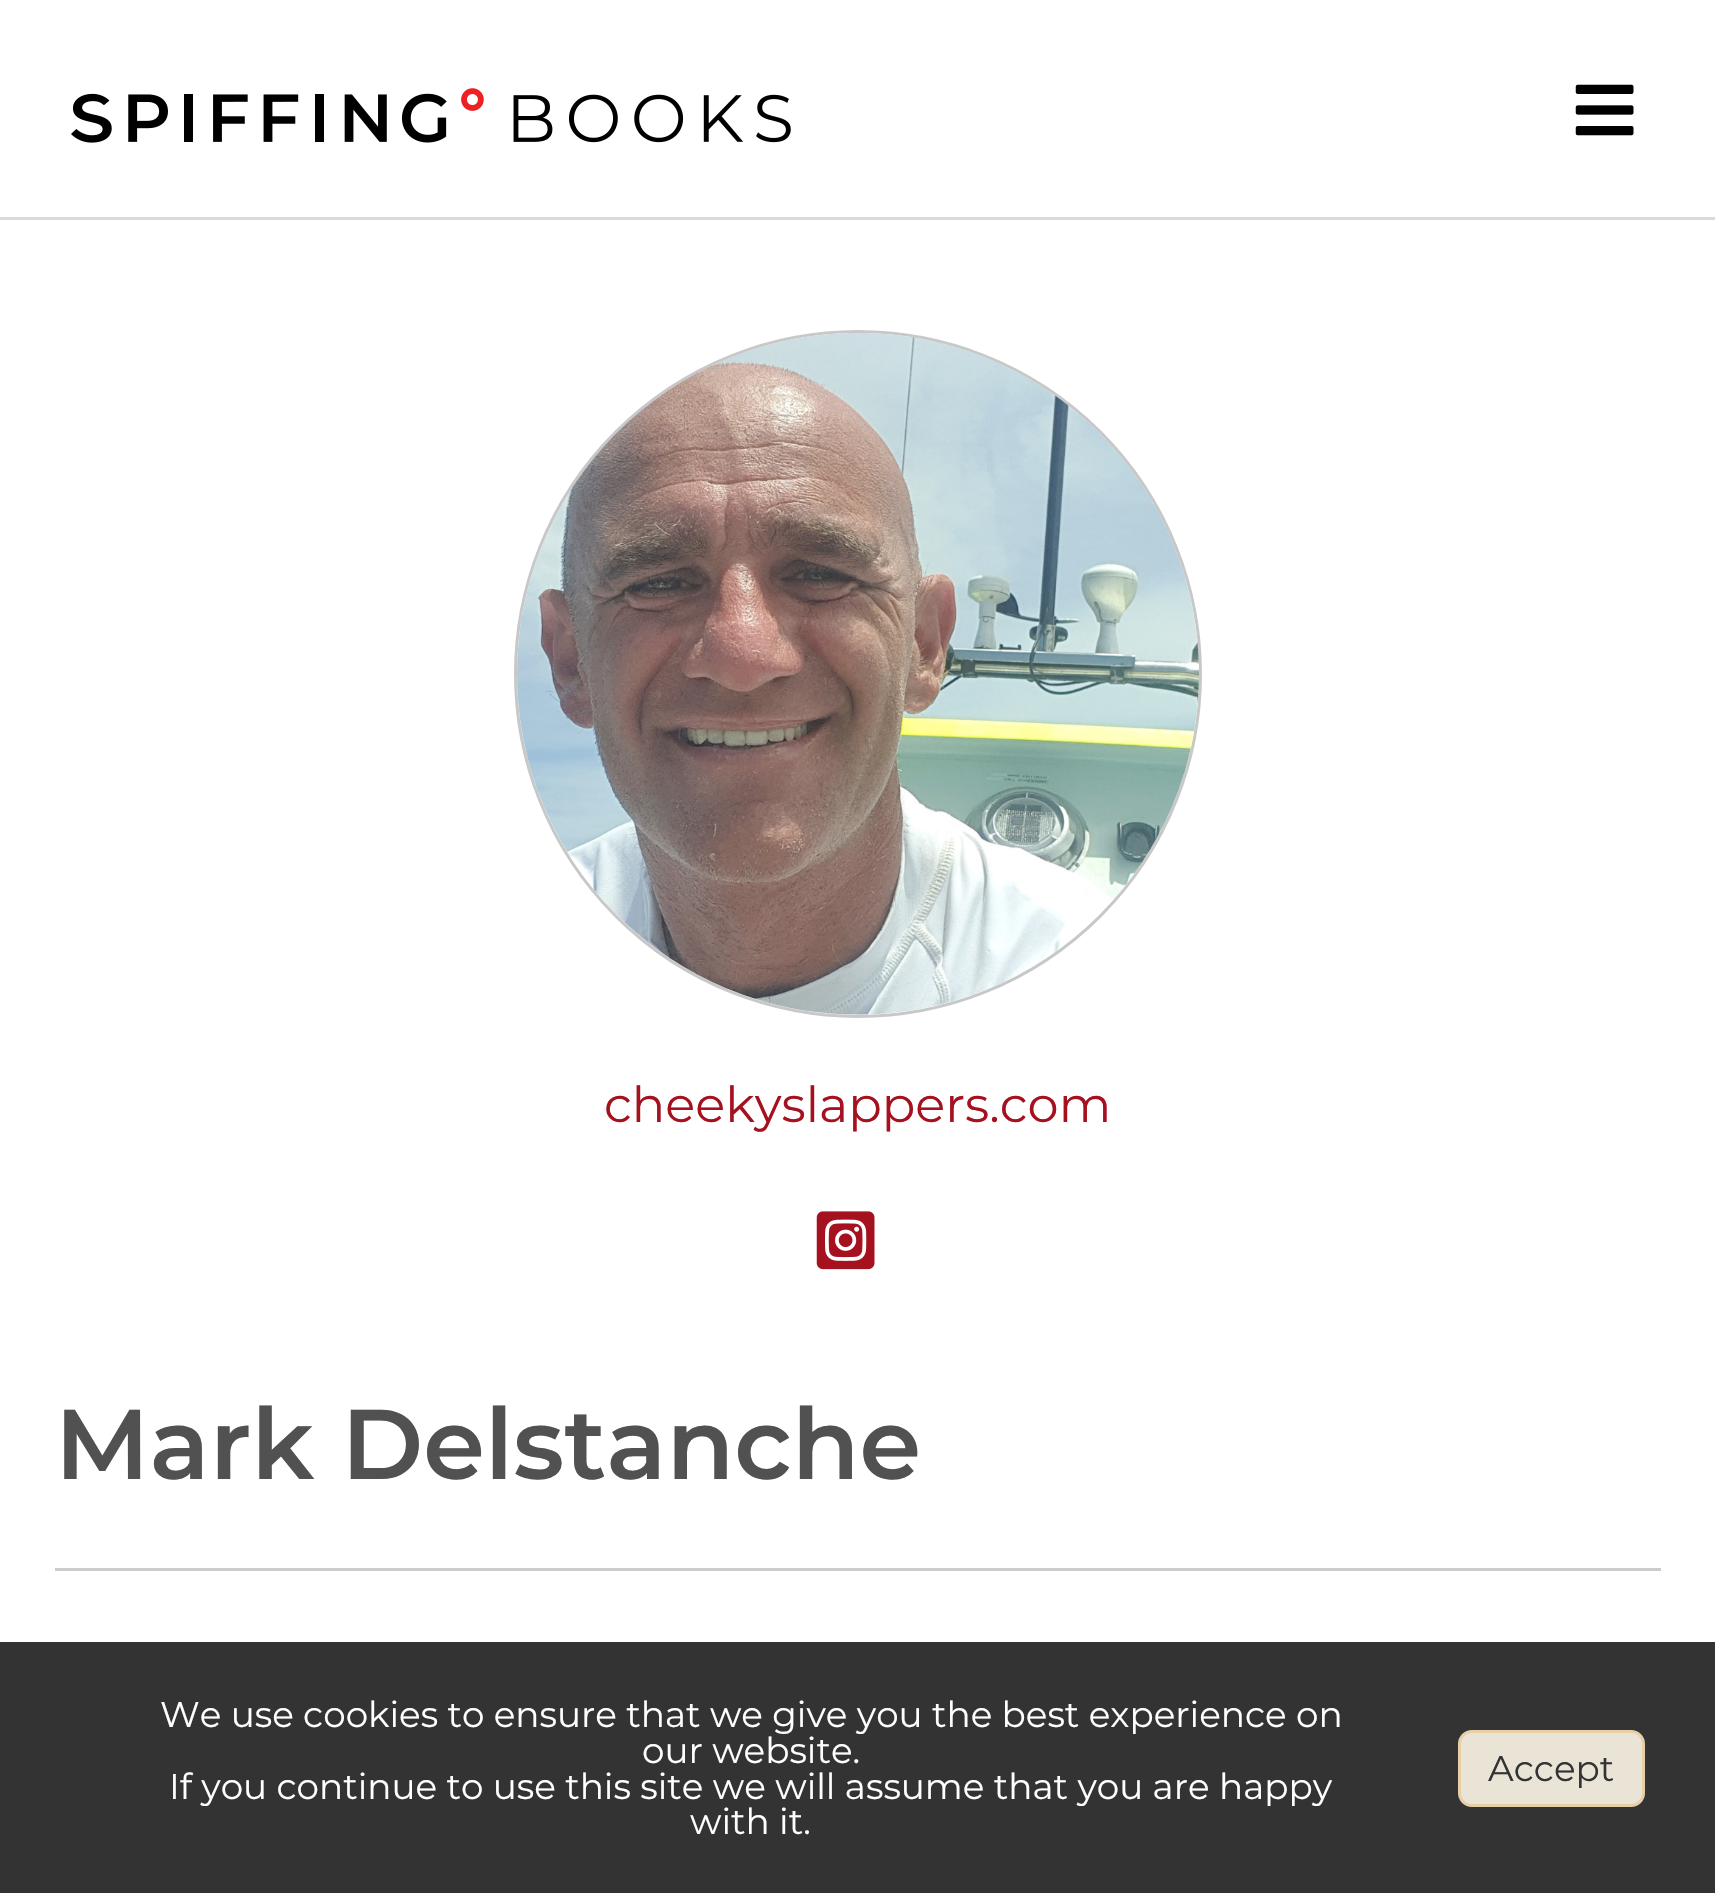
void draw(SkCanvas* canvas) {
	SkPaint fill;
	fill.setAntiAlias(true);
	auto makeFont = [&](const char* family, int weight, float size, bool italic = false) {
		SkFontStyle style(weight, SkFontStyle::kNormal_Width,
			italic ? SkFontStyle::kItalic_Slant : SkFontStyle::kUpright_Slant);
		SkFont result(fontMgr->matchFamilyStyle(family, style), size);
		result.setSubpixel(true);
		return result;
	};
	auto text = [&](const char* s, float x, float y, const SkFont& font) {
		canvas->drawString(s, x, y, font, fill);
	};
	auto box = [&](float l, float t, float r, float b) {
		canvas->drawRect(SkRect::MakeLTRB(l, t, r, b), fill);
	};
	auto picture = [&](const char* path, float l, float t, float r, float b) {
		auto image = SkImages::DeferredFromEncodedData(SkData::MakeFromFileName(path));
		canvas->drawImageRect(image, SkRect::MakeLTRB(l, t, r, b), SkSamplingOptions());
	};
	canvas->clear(0xFFFFFFFF);
	fill.setColor(0xFFD9D9D9);
	box(0, 217, 1715, 220);
	picture("image0.png", 71, 88, 791, 143);
	picture("image1.png", 1575, 84, 1634, 136);
	fill.setStyle(SkPaint::kStroke_Style);
	fill.setStrokeWidth(3);
	fill.setColor(0xFFC8C8C8);
	canvas->drawCircle(858, 674, 342.5f, fill);
	picture("image2.png", 517, 333, 1199, 1015);
	picture("image3.png", 816, 1211, 875, 1270);
	fill.setStyle(SkPaint::kFill_Style);
	fill.setColor(0xFFCCCCCC);
	box(55, 1568, 1661, 1571);
	fill.setColor(0xFF333333);
	box(0, 1642, 1715, 1893);
	fill.setColor(0xFFE9E4D6);
	canvas->drawRoundRect(SkRect::MakeLTRB(1459.5f, 1731.5f, 1643.5f, 1805.5f), 12.5f, 12.5f, fill);
	fill.setStyle(SkPaint::kStroke_Style);
	fill.setColor(0xFFE8CFA7);
	canvas->drawRoundRect(SkRect::MakeLTRB(1459.5f, 1731.5f, 1643.5f, 1805.5f), 12.5f, 12.5f, fill);
	auto font1 = makeFont("Montserrat", 400, 49.5f);
	fill.setStyle(SkPaint::kFill_Style);
	fill.setColor(0xFFA61120);
	text("cheekyslappers.com", 604, 1122, font1);
	auto font2 = makeFont("Montserrat", 600, 99);
	fill.setColor(0xFF515151);
	text("Mark Delstanche", 55, 1479, font2);
	auto font3 = makeFont("Montserrat", 400, 35.75f);
	fill.setColor(0xFFFFFFFF);
	text("We use cookies to ensure that we give you the best experience on", 160, 1727, font3);
	text("our website.", 642, 1763, font3);
	text("If you continue to use this site we will assume that you are happy", 169, 1799, font3);
	text("with it.", 690, 1834, font3);
	fill.setColor(0xFF333333);
	text("Accept", 1488, 1781, font3);
}
